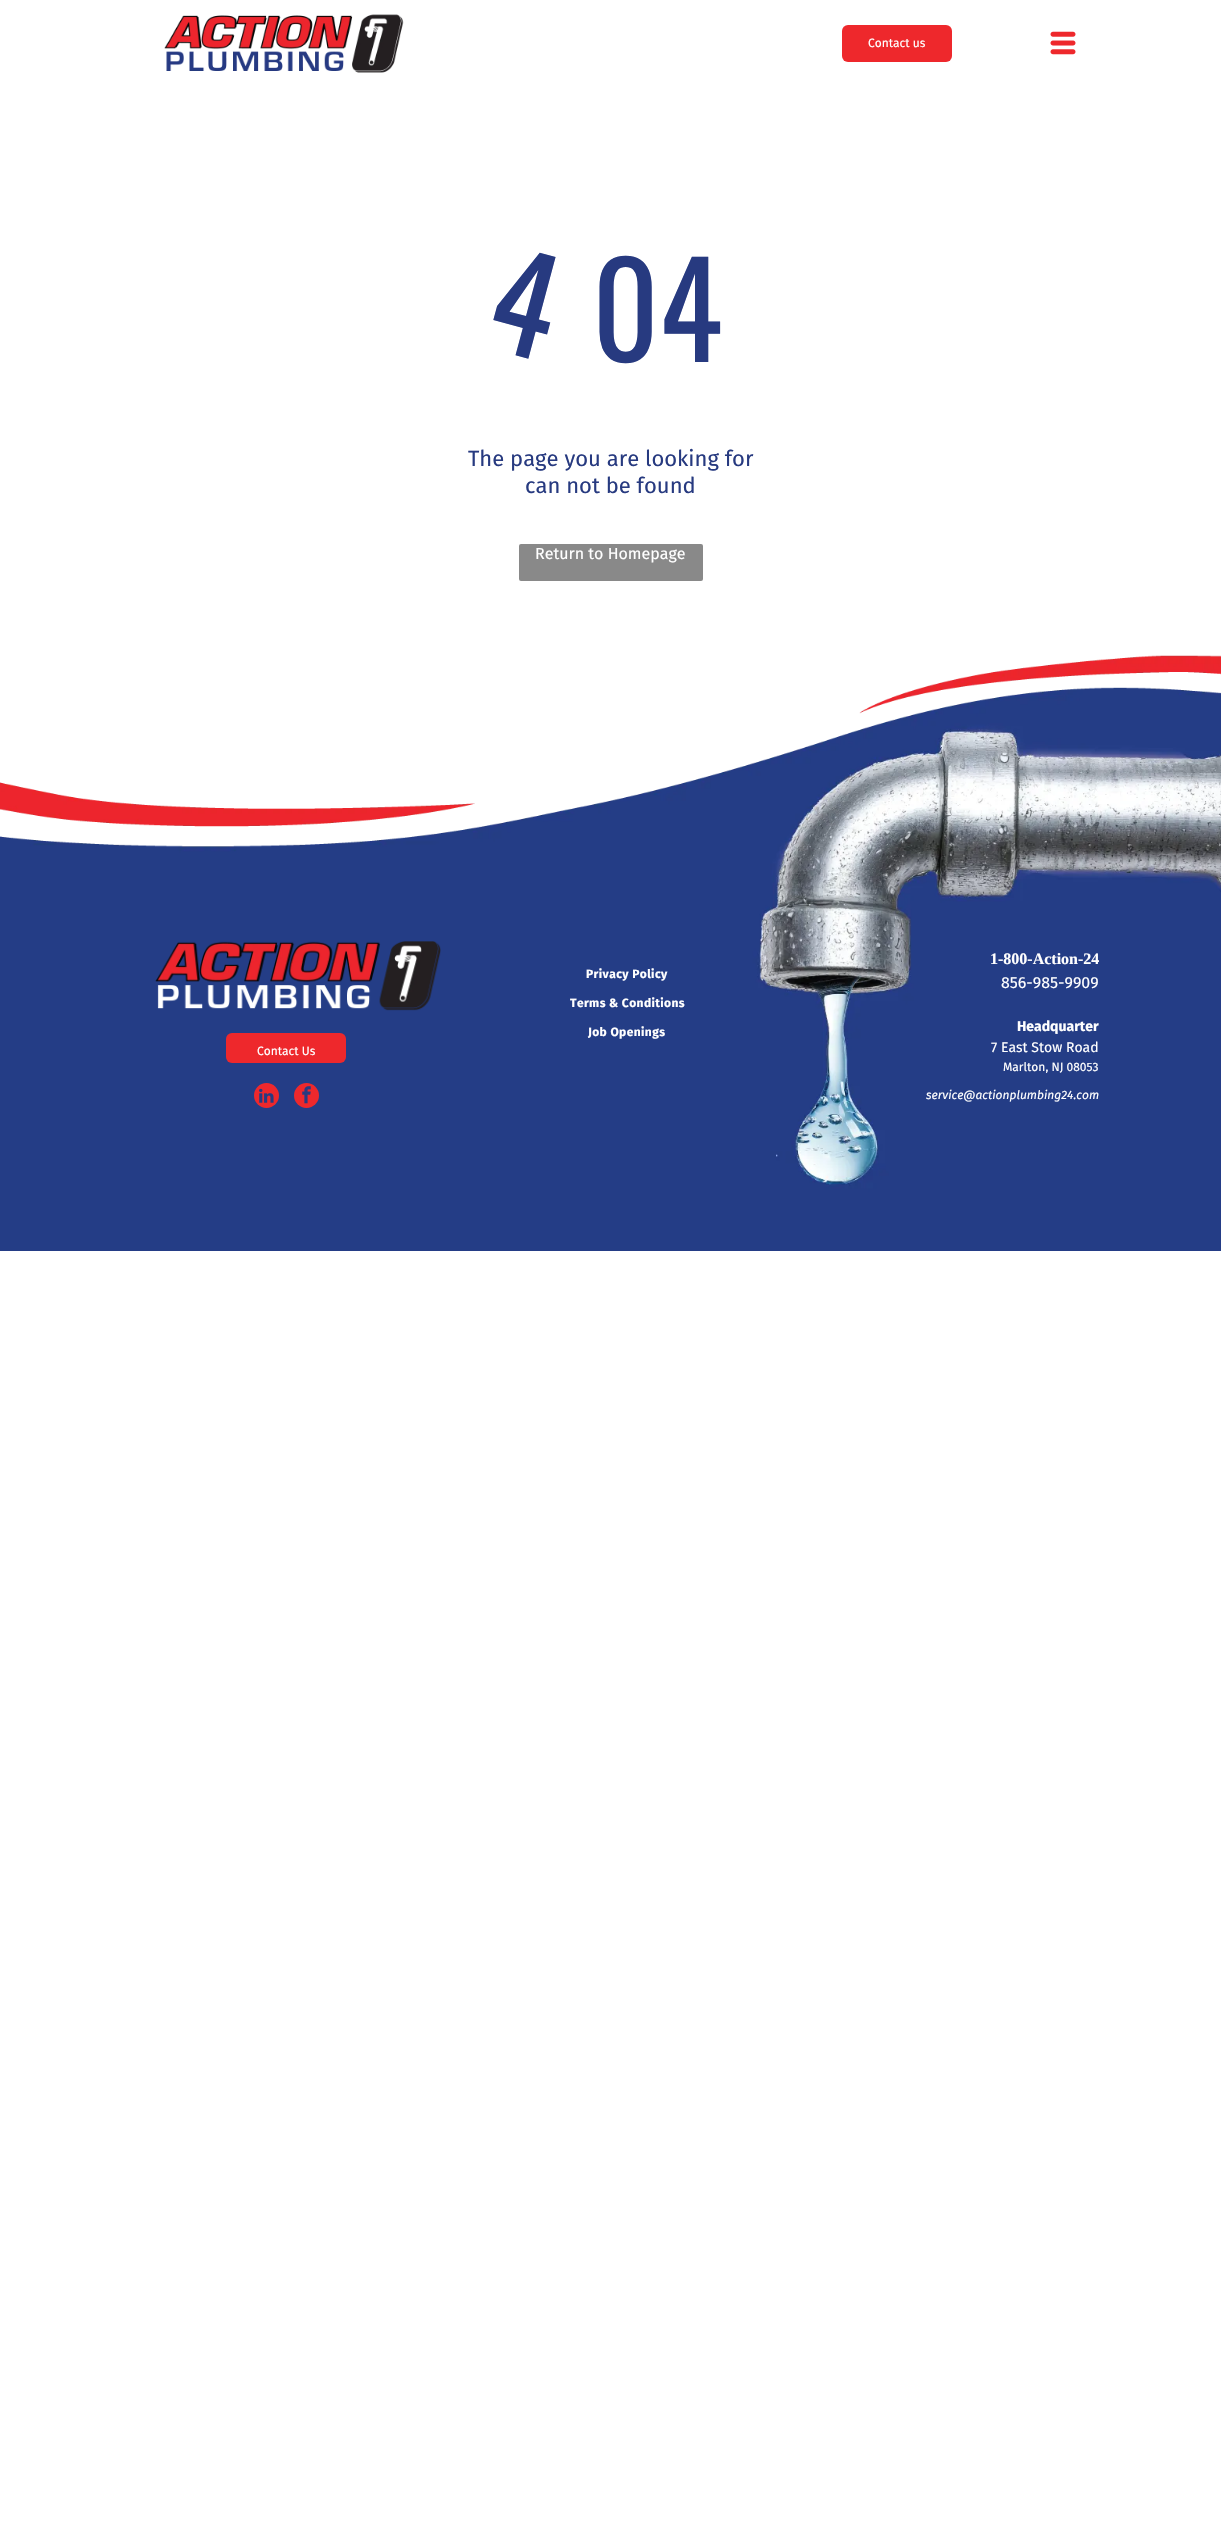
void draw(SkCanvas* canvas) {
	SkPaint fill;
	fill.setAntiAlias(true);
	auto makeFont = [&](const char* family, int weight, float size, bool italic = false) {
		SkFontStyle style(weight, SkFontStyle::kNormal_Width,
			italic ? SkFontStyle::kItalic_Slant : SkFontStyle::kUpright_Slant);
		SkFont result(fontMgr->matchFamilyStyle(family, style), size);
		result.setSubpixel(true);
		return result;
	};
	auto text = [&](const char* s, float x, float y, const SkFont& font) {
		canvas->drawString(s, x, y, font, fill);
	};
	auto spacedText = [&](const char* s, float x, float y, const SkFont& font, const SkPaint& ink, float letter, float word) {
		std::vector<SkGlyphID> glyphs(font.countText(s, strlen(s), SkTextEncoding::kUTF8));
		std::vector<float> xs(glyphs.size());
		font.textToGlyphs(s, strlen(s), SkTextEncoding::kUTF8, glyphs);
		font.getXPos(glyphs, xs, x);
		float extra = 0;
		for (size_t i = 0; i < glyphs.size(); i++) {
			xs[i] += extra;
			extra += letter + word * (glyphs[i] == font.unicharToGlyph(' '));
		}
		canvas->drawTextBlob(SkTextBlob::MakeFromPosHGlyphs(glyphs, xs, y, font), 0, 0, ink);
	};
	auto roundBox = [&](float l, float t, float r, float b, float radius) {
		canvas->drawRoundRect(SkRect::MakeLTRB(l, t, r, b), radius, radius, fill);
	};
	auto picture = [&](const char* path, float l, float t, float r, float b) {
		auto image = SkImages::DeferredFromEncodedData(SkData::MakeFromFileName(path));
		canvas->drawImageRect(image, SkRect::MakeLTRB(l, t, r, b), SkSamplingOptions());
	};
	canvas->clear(0xFFFFFFFF);
	picture("image0.png", 164, 14, 404, 73);
	fill.setColor(0xFFEE282C);
	roundBox(842, 25, 952, 62, 6);
	picture("image1.png", 1050, 31, 1076, 55);
	fill.setColor(0xFF898989);
	roundBox(519, 544, 703, 581, 2);
	picture("image2.png", 0, 655, 1221, 1251);
	picture("image3.png", 155, 941, 441, 1011);
	fill.setColor(0xFFEE282C);
	roundBox(226, 1033, 346, 1063, 6);
	canvas->drawCircle(266.5f, 1095.5f, 12.5f, fill);
	picture("image4.png", 259, 1088, 274, 1103);
	canvas->drawCircle(306.5f, 1095.5f, 12.5f, fill);
	picture("image5.png", 302, 1086, 311, 1104);
	auto font1 = makeFont("Fira Sans", 400, 12);
	fill.setColor(0xFFFFFFFF);
	text("Contact us", 868, 47, font1);
	auto font2 = makeFont("Oswald", 400, 130);
	fill.setColor(0xFF273A80);
	canvas->save();
	canvas->rotate(15, 481, 346);
	text("4", 481, 346, font2);
	canvas->restore();
	text("04", 592, 362, font2);
	auto font3 = makeFont("Fira Sans", 400, 22);
	text("The page you are looking for", 468, 466, font3);
	text("can not be found", 525, 493, font3);
	auto font4 = makeFont("Fira Sans", 400, 16);
	fill.setColor(0xFFFFFFFF);
	text("Return to Homepage", 535, 559, font4);
	auto font5 = makeFont("Fira Sans", 700, 12);
	spacedText("Privacy Policy", 586, 978, font5, fill, 0.4f, 0);
	spacedText("Terms & Conditions", 570, 1007, font5, fill, 0.4f, 0);
	spacedText("Job Openings", 588, 1036, font5, fill, 0.4f, 0);
	auto font6 = makeFont("Liberation Serif", 700, 16);
	text("1-800-Action-24", 990, 964, font6);
	text("856-985-9909", 1001, 988, font4);
	auto font7 = makeFont("Fira Sans", 700, 14);
	text("Headquarter", 1017, 1031, font7);
	auto font8 = makeFont("Fira Sans", 400, 14);
	text("7 East Stow Road", 991, 1052, font8);
	text("Marlton, NJ 08053", 1003, 1071, font1);
	auto font9 = makeFont("Fira Sans", 400, 12, true);
	text("service@actionplumbing24.com", 926, 1099, font9);
	text("Contact Us", 257, 1055, font1);
}
